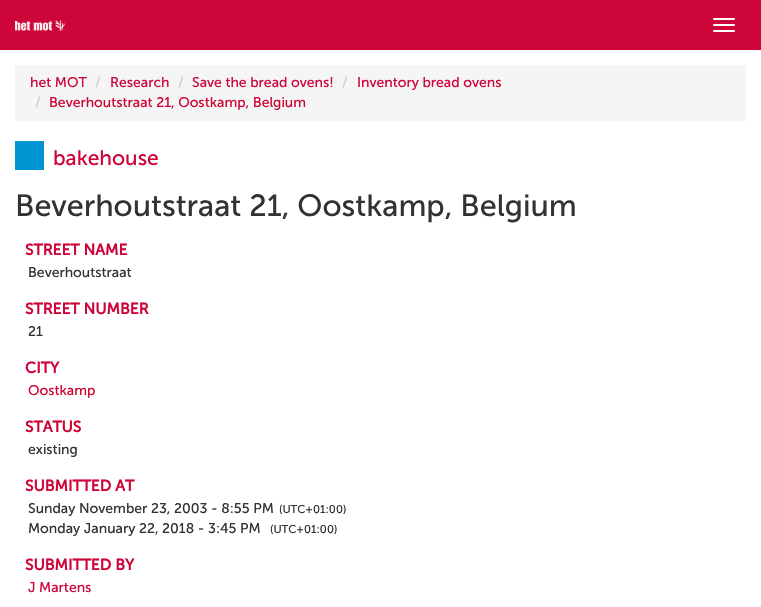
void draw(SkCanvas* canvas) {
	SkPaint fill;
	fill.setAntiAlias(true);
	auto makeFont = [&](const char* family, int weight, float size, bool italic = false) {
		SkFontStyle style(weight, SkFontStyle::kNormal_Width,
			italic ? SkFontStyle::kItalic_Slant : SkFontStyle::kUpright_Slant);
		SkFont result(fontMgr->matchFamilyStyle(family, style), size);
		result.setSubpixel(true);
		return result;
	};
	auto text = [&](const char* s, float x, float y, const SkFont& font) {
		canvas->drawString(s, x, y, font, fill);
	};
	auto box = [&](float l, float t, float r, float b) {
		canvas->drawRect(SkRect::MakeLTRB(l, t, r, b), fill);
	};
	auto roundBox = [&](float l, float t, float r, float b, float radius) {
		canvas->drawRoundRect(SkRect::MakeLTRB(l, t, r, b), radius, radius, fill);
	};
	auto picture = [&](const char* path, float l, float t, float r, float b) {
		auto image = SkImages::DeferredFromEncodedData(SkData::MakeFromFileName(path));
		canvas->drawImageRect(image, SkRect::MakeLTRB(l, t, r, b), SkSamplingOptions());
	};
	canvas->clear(0xFFFFFFFF);
	fill.setColor(0xFFCE0538);
	box(0, 0, 761, 50);
	picture("image0.png", 15, 20, 65, 31);
	fill.setColor(0xFFFFFFFF);
	roundBox(713, 18, 735, 20, 1);
	roundBox(713, 24, 735, 26, 1);
	roundBox(713, 30, 735, 32, 1);
	fill.setColor(0xFFF5F5F5);
	box(15, 65, 746, 121);
	fill.setColor(0xFF0094D2);
	box(15, 141, 44, 170);
	auto font1 = makeFont("Museo Sans", 400, 14);
	fill.setColor(0xFFCE0538);
	text("het MOT", 30, 87, font1);
	fill.setColor(0xFFCCCCCC);
	text("/", 95, 87, font1);
	fill.setColor(0xFFCE0538);
	text("Research", 110, 87, font1);
	fill.setColor(0xFFCCCCCC);
	text("/", 178, 87, font1);
	fill.setColor(0xFFCE0538);
	text("Save the bread ovens!", 192, 87, font1);
	fill.setColor(0xFFCCCCCC);
	text("/", 342, 87, font1);
	fill.setColor(0xFFCE0538);
	text("Inventory bread ovens", 357, 87, font1);
	fill.setColor(0xFFCCCCCC);
	text("/", 35, 107, font1);
	fill.setColor(0xFFCE0538);
	text("Beverhoutstraat 21, Oostkamp, Belgium", 49, 107, font1);
	auto font2 = makeFont("Museo Sans", 400, 21);
	text("bakehouse", 53, 165, font2);
	auto font3 = makeFont("Museo Sans", 400, 30.6f);
	fill.setColor(0xFF333333);
	text("Beverhoutstraat 21, Oostkamp, Belgium", 15, 216, font3);
	auto font4 = makeFont("Museo Sans", 700, 15.5f);
	fill.setColor(0xFFCE0538);
	text("STREET NAME", 25, 255, font4);
	fill.setColor(0xFF333333);
	text("Beverhoutstraat", 28, 277, font1);
	fill.setColor(0xFFCE0538);
	text("STREET NUMBER", 25, 314, font4);
	fill.setColor(0xFF333333);
	text("21", 28, 336, font1);
	fill.setColor(0xFFCE0538);
	text("CITY", 25, 373, font4);
	text("Oostkamp", 28, 395, font1);
	text("STATUS", 25, 432, font4);
	fill.setColor(0xFF333333);
	text("existing", 28, 454, font1);
	fill.setColor(0xFFCE0538);
	text("SUBMITTED AT", 25, 491, font4);
	fill.setColor(0xFF333333);
	text("Sunday November 23, 2003 - 8:55 PM", 28, 513, font1);
	auto font5 = makeFont("Museo Sans", 400, 11.25f);
	text("(UTC+01:00)", 279, 513, font5);
	text("Monday January 22, 2018 - 3:45 PM", 28, 533, font1);
	text("(UTC+01:00)", 270, 533, font5);
	fill.setColor(0xFFCE0538);
	text("SUBMITTED BY", 25, 570, font4);
	text("J Martens", 28, 592, font1);
}
